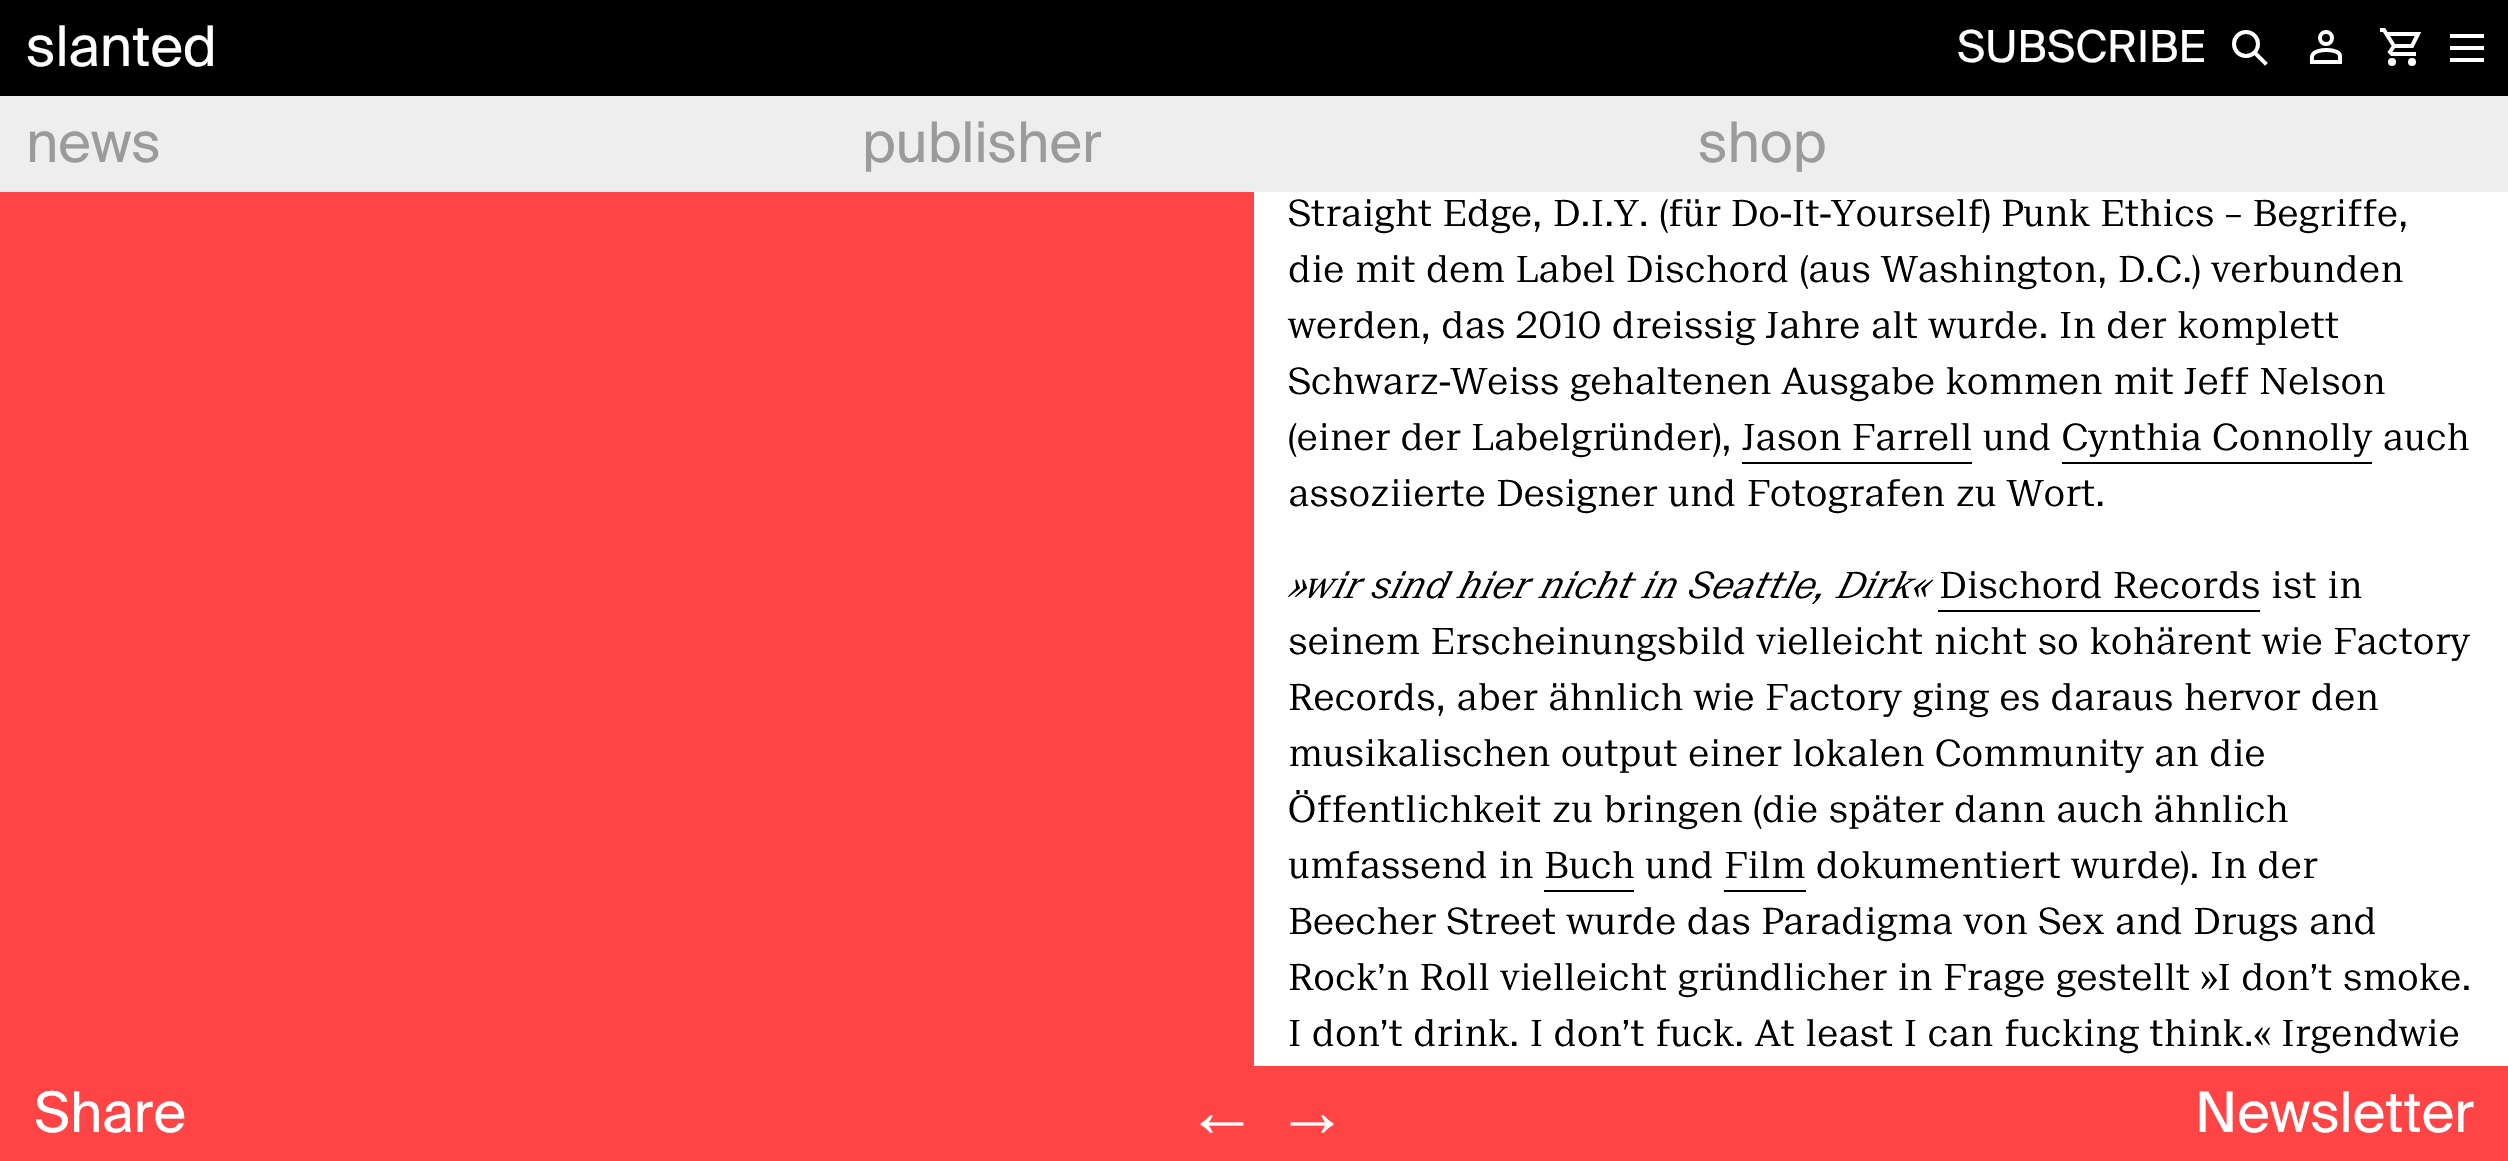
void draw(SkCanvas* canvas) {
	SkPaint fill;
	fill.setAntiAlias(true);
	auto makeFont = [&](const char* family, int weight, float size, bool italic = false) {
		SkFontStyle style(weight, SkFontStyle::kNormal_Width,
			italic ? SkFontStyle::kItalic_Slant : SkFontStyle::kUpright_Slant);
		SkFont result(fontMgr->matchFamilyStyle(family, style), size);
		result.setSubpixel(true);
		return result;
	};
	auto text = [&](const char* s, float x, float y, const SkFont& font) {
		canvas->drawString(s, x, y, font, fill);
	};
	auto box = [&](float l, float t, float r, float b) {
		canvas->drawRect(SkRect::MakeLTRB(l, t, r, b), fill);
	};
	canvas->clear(0xFFFFFFFF);
	fill.setColor(0xFF000000);
	box(0, 0, 2508, 96);
	fill.setStyle(SkPaint::kStroke_Style);
	fill.setStrokeWidth(4);
	fill.setColor(0xFFFFFFFF);
	canvas->drawCircle(2246, 44, 12, fill);
	fill.setStrokeCap(SkPaint::kSquare_Cap);
	canvas->drawPath(SkPathBuilder().moveTo(2255, 53).lineTo(2265, 63).detach(), fill);
	fill.setStrokeCap(SkPaint::kButt_Cap);
	canvas->drawCircle(2326, 38, 6, fill);
	canvas->drawPath(SkPathBuilder().moveTo(2340, 56).cubicTo(2340, 48.5f, 2315.5f, 48, 2312.5f, 55).cubicTo(2311.5f, 56.5f, 2312, 60, 2312, 62).lineTo(2340, 62).close().detach(), fill);
	canvas->drawPath(SkPathBuilder().moveTo(2380, 30).lineTo(2384, 30).lineTo(2394, 46).lineTo(2390, 52).lineTo(2392, 54).lineTo(2416, 54).moveTo(2386, 34).lineTo(2418, 34).lineTo(2412, 46).lineTo(2394, 46).detach(), fill);
	fill.setStyle(SkPaint::kFill_Style);
	canvas->drawCircle(2392, 62, 4, fill);
	canvas->drawCircle(2412, 62, 4, fill);
	box(2450, 34, 2484, 38);
	box(2450, 46, 2484, 50);
	box(2450, 58, 2484, 62);
	fill.setColor(0xFFEEEEEE);
	box(0, 96, 2508, 192);
	fill.setColor(0xFFFF4446);
	box(0, 192, 1254, 1066);
	fill.setColor(0xFF000000);
	box(1742, 462, 1972, 464);
	box(2062, 462, 2372, 464);
	box(1938, 610, 2260, 612);
	box(1544, 890, 1634, 892);
	box(1724, 890, 1806, 892);
	fill.setColor(0xFFFF4446);
	box(0, 1066, 2508, 1161);
	auto font1 = makeFont("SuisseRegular", 400, 56);
	fill.setColor(0xFFFFFFFF);
	text("slanted", 26, 66, font1);
	auto font2 = makeFont("SuisseRegular", 400, 44);
	text("SUBSCRIBE", 1957, 62, font2);
	fill.setColor(0xFF9B9B9B);
	text("news", 26, 162, font1);
	text("publisher", 862, 162, font1);
	text("shop", 1698, 162, font1);
	auto font3 = makeFont("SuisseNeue", 300, 36);
	fill.setColor(0xFF000000);
	text("Straight Edge, D.I.Y. (für Do-It-Yourself) Punk Ethics – Begriffe,", 1288, 226, font3);
	text("die mit dem Label Dischord (aus Washington, D.C.) verbunden", 1288, 282, font3);
	text("werden, das 2010 dreissig Jahre alt wurde. In der komplett", 1288, 338, font3);
	text("Schwarz-Weiss gehaltenen Ausgabe kommen mit Jeff Nelson", 1288, 394, font3);
	text("(einer der Labelgründer), Jason Farrell und Cynthia Connolly auch", 1288, 450, font3);
	text("assoziierte Designer und Fotografen zu Wort.", 1288, 506, font3);
	auto font4 = makeFont("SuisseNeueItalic", 300, 36, true);
	text("»wir sind hier nicht in Seattle, Dirk«", 1288, 598, font4);
	text("Dischord Records ist in", 1939, 598, font3);
	text("seinem Erscheinungsbild vielleicht nicht so kohärent wie Factory", 1288, 654, font3);
	text("Records, aber ähnlich wie Factory ging es daraus hervor den", 1288, 710, font3);
	text("musikalischen output einer lokalen Community an die", 1288, 766, font3);
	text("Öffentlichkeit zu bringen (die später dann auch ähnlich", 1288, 822, font3);
	text("umfassend in Buch und Film dokumentiert wurde). In der", 1288, 878, font3);
	text("Beecher Street wurde das Paradigma von Sex and Drugs and", 1288, 934, font3);
	text("Rock’n Roll vielleicht gründlicher in Frage gestellt »I don’t smoke.", 1288, 990, font3);
	text("I don’t drink. I don’t fuck. At least I can fucking think.« Irgendwie", 1288, 1046, font3);
	fill.setColor(0xFFFFFFFF);
	text("Share", 34, 1132, font1);
	auto font5 = makeFont("Liberation Sans", 700, 72);
	text("←", 1186, 1136, font5);
	text("→", 1276, 1136, font5);
	text("Newsletter", 2195, 1132, font1);
}
